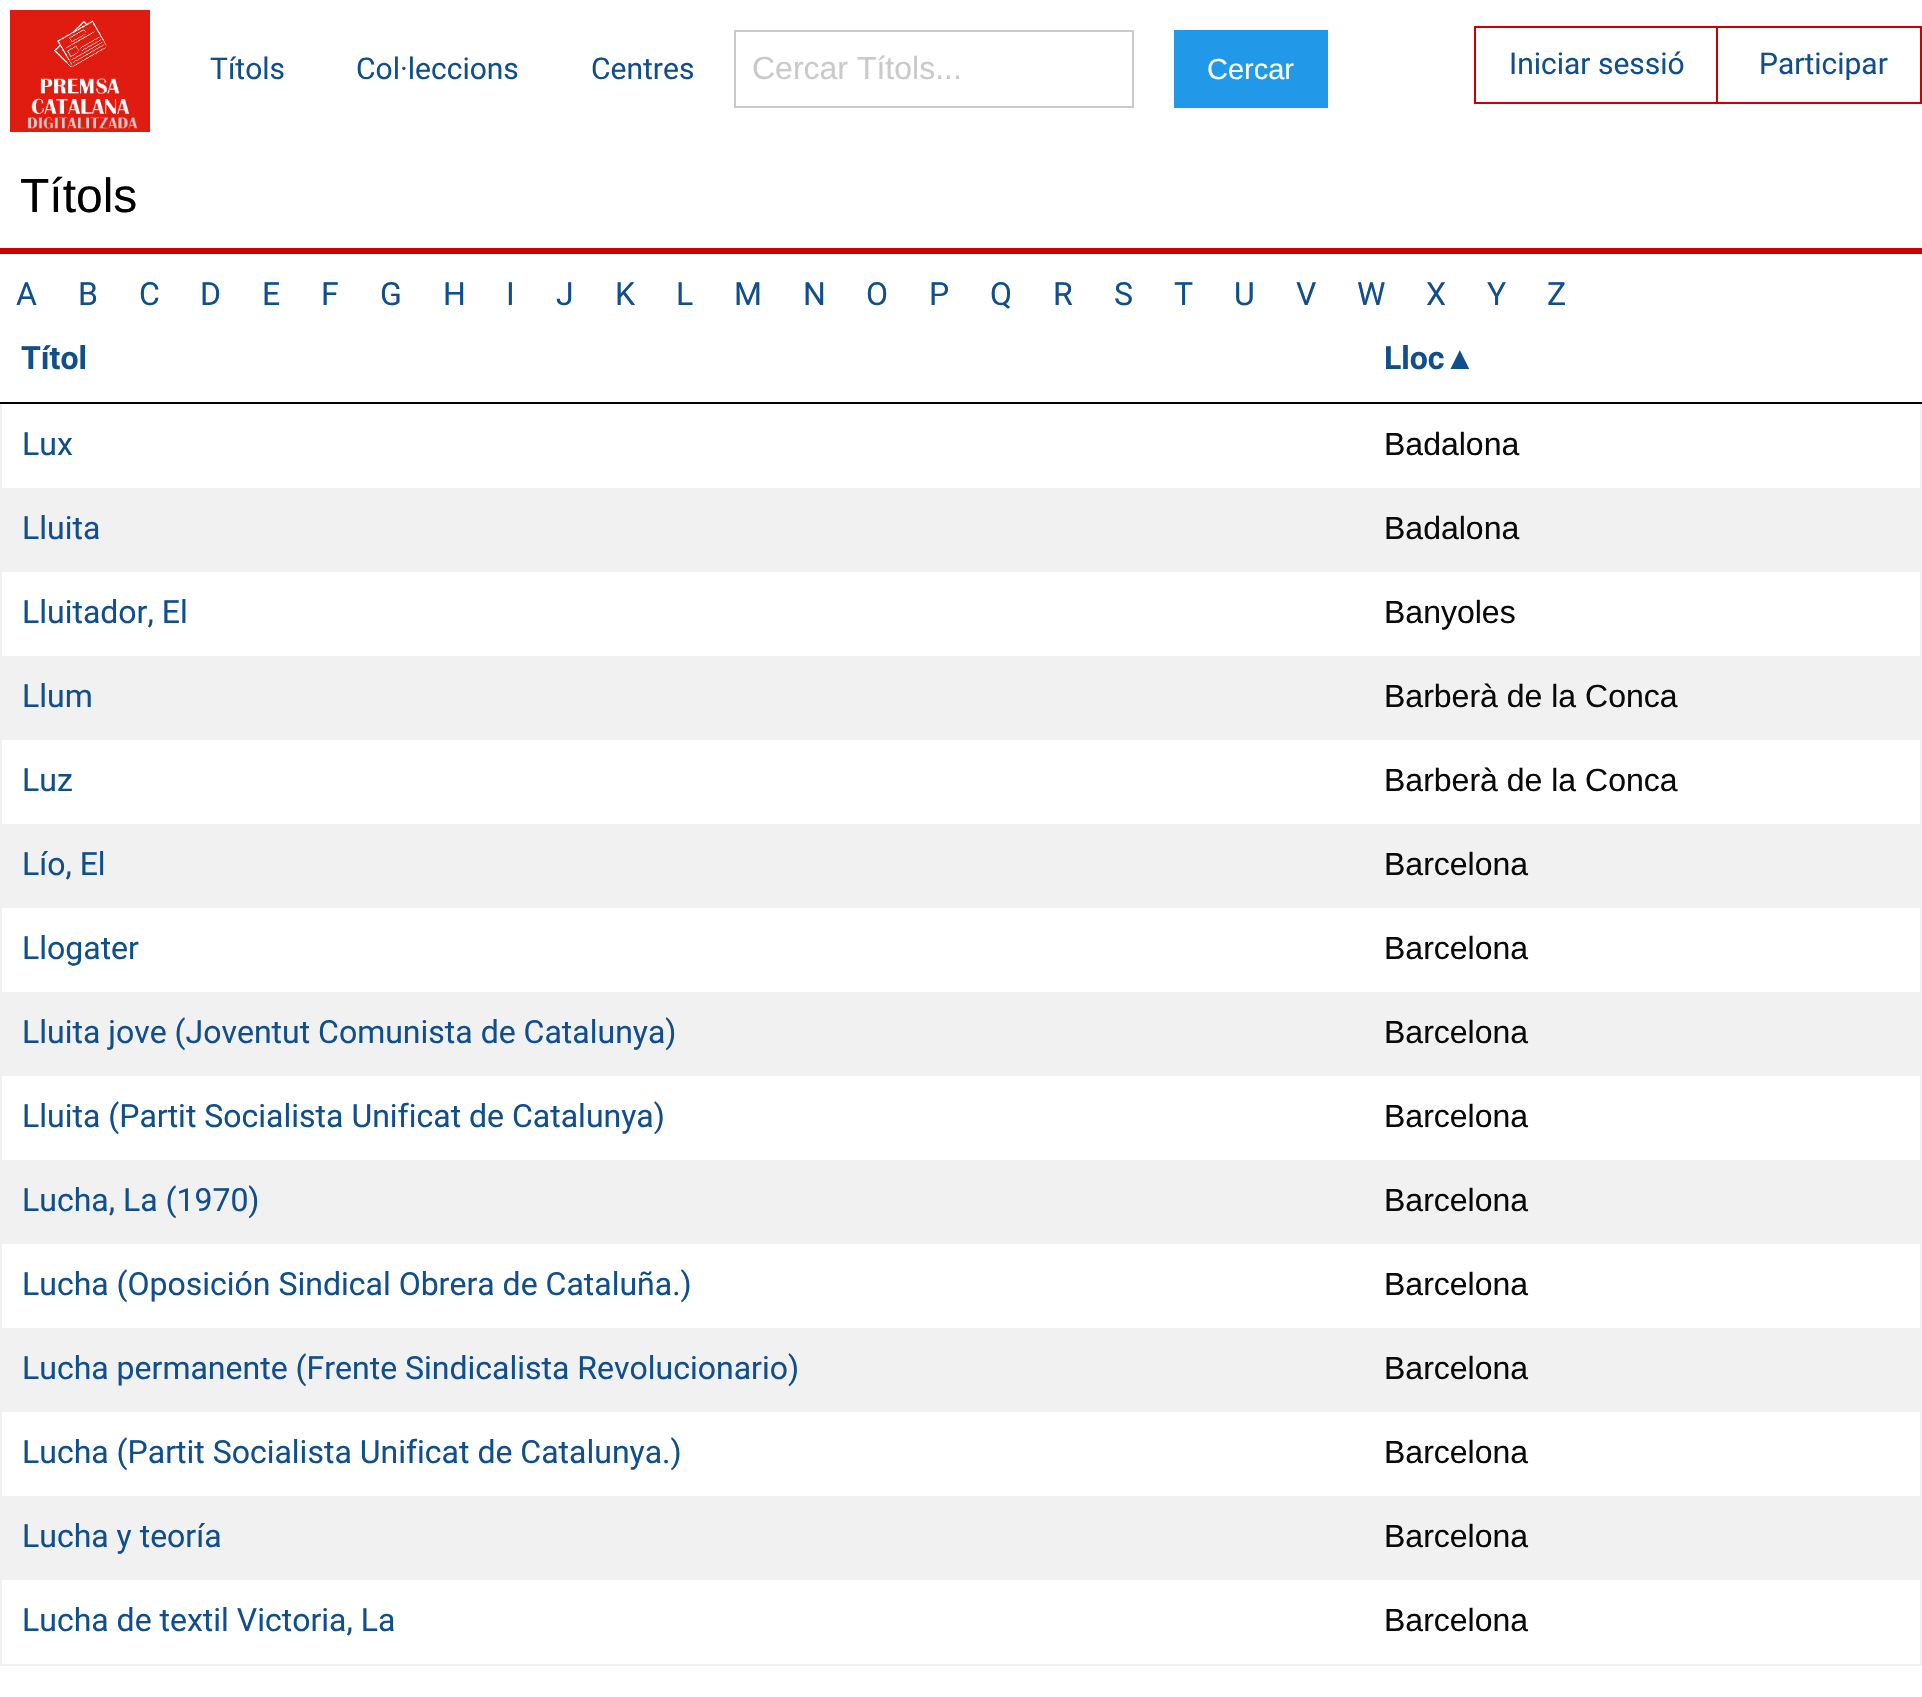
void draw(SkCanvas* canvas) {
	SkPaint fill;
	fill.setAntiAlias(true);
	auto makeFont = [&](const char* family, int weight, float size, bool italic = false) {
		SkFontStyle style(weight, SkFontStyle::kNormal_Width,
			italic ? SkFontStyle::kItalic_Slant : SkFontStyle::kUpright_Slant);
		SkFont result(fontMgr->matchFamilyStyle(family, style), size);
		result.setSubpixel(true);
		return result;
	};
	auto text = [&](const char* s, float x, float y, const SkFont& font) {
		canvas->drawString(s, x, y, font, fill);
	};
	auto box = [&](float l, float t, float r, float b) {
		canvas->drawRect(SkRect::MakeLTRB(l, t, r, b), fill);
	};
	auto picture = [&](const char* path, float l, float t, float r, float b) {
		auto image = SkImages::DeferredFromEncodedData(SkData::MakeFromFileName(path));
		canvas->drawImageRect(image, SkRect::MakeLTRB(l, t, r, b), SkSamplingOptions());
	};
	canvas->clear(0xFFFFFFFF);
	picture("image0.png", 10, 10, 150, 132);
	fill.setStyle(SkPaint::kStroke_Style);
	fill.setStrokeWidth(2);
	fill.setColor(0xFFCACACA);
	canvas->drawRect(SkRect::MakeLTRB(735, 31, 1133, 107), fill);
	fill.setStyle(SkPaint::kFill_Style);
	fill.setColor(0xFF2199E8);
	box(1174, 30, 1328, 108);
	fill.setStyle(SkPaint::kStroke_Style);
	fill.setColor(0xFFCC0000);
	canvas->drawRect(SkRect::MakeLTRB(1475, 27, 1921, 103), fill);
	fill.setStyle(SkPaint::kFill_Style);
	box(1716, 28, 1718, 102);
	box(0, 248, 1922, 254);
	fill.setColor(0xFFF1F1F1);
	box(1920, 402, 1922, 1666);
	box(0, 1664, 1922, 1666);
	box(0, 402, 2, 1666);
	fill.setColor(0xFF000000);
	box(0, 402, 1922, 404);
	fill.setColor(0xFFF1F1F1);
	box(2, 488, 1920, 572);
	box(2, 656, 1920, 740);
	box(2, 824, 1920, 908);
	box(2, 992, 1920, 1076);
	box(2, 1160, 1920, 1244);
	box(2, 1328, 1920, 1412);
	box(2, 1496, 1920, 1580);
	auto font1 = makeFont("Roboto", 400, 30);
	fill.setColor(0xFF114F8C);
	text("Títols", 210, 79, font1);
	text("Col·leccions", 356, 79, font1);
	text("Centres", 591, 79, font1);
	auto font2 = makeFont("Liberation Sans", 400, 32);
	fill.setColor(0xFFCACACA);
	text("Cercar Títols...", 752, 79, font2);
	auto font3 = makeFont("Liberation Sans", 400, 29);
	fill.setColor(0xFFFEFEFE);
	text("Cercar", 1207, 79, font3);
	fill.setColor(0xFF114F8C);
	text("Iniciar sessió", 1509, 74, font1);
	text("Participar", 1759, 74, font1);
	auto font4 = makeFont("Liberation Sans", 400, 48);
	fill.setColor(0xFF000000);
	text("Títols", 20, 212, font4);
	auto font5 = makeFont("Roboto", 400, 32);
	fill.setColor(0xFF114F8C);
	text("A", 16, 305, font5);
	text("B", 78, 305, font5);
	text("C", 139, 305, font5);
	text("D", 200, 305, font5);
	text("E", 262, 305, font5);
	text("F", 321, 305, font5);
	text("G", 380, 305, font5);
	text("H", 443, 305, font5);
	text("I", 506, 305, font5);
	text("J", 556, 305, font5);
	text("K", 615, 305, font5);
	text("L", 676, 305, font5);
	text("M", 734, 305, font5);
	text("N", 803, 305, font5);
	text("O", 866, 305, font5);
	text("P", 929, 305, font5);
	text("Q", 990, 305, font5);
	text("R", 1053, 305, font5);
	text("S", 1114, 305, font5);
	text("T", 1174, 305, font5);
	text("U", 1234, 305, font5);
	text("V", 1296, 305, font5);
	text("W", 1357, 305, font5);
	text("X", 1426, 305, font5);
	text("Y", 1487, 305, font5);
	text("Z", 1547, 305, font5);
	auto font6 = makeFont("Roboto", 700, 32);
	text("Títol", 21, 369, font6);
	text("Lloc", 1384, 369, font6);
	auto font7 = makeFont("Liberation Sans", 700, 32);
	text("▲", 1444, 369, font7);
	text("Lux", 22, 455, font5);
	fill.setColor(0xFF0A0A0A);
	text("Badalona", 1384, 455, font2);
	fill.setColor(0xFF114F8C);
	text("Lluita", 22, 539, font5);
	fill.setColor(0xFF0A0A0A);
	text("Badalona", 1384, 539, font2);
	fill.setColor(0xFF114F8C);
	text("Lluitador, El", 22, 623, font5);
	fill.setColor(0xFF0A0A0A);
	text("Banyoles", 1384, 623, font2);
	fill.setColor(0xFF114F8C);
	text("Llum", 22, 707, font5);
	fill.setColor(0xFF0A0A0A);
	text("Barberà de la Conca", 1384, 707, font2);
	fill.setColor(0xFF114F8C);
	text("Luz", 22, 791, font5);
	fill.setColor(0xFF0A0A0A);
	text("Barberà de la Conca", 1384, 791, font2);
	fill.setColor(0xFF114F8C);
	text("Lío, El", 22, 875, font5);
	fill.setColor(0xFF0A0A0A);
	text("Barcelona", 1384, 875, font2);
	fill.setColor(0xFF114F8C);
	text("Llogater", 22, 959, font5);
	fill.setColor(0xFF0A0A0A);
	text("Barcelona", 1384, 959, font2);
	fill.setColor(0xFF114F8C);
	text("Lluita jove (Joventut Comunista de Catalunya)", 22, 1043, font5);
	fill.setColor(0xFF0A0A0A);
	text("Barcelona", 1384, 1043, font2);
	fill.setColor(0xFF114F8C);
	text("Lluita (Partit Socialista Unificat de Catalunya)", 22, 1127, font5);
	fill.setColor(0xFF0A0A0A);
	text("Barcelona", 1384, 1127, font2);
	fill.setColor(0xFF114F8C);
	text("Lucha, La (1970)", 22, 1211, font5);
	fill.setColor(0xFF0A0A0A);
	text("Barcelona", 1384, 1211, font2);
	fill.setColor(0xFF114F8C);
	text("Lucha (Oposición Sindical Obrera de Cataluña.)", 22, 1295, font5);
	fill.setColor(0xFF0A0A0A);
	text("Barcelona", 1384, 1295, font2);
	fill.setColor(0xFF114F8C);
	text("Lucha permanente (Frente Sindicalista Revolucionario)", 22, 1379, font5);
	fill.setColor(0xFF0A0A0A);
	text("Barcelona", 1384, 1379, font2);
	fill.setColor(0xFF114F8C);
	text("Lucha (Partit Socialista Unificat de Catalunya.)", 22, 1463, font5);
	fill.setColor(0xFF0A0A0A);
	text("Barcelona", 1384, 1463, font2);
	fill.setColor(0xFF114F8C);
	text("Lucha y teoría", 22, 1547, font5);
	fill.setColor(0xFF0A0A0A);
	text("Barcelona", 1384, 1547, font2);
	fill.setColor(0xFF114F8C);
	text("Lucha de textil Victoria, La", 22, 1631, font5);
	fill.setColor(0xFF0A0A0A);
	text("Barcelona", 1384, 1631, font2);
}
